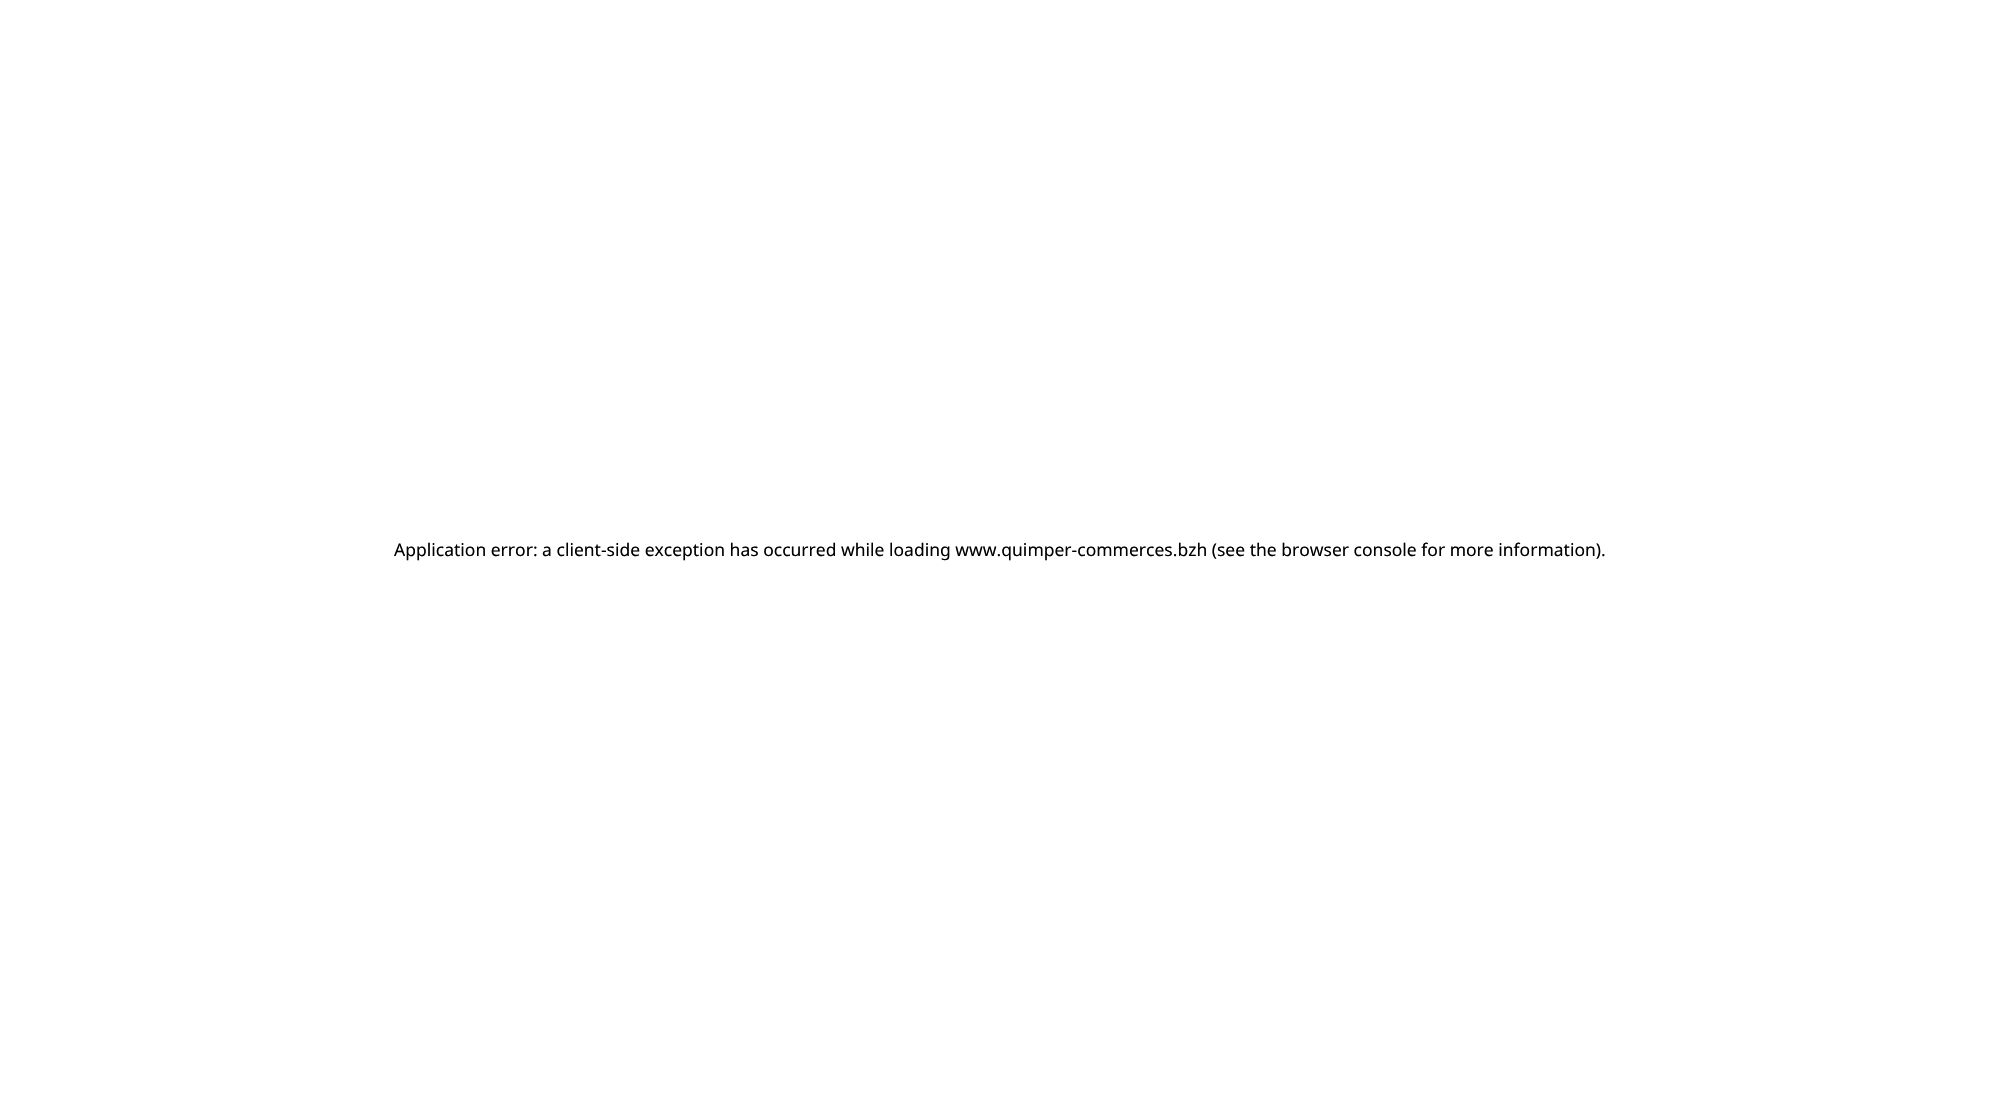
void draw(SkCanvas* canvas) {
	SkPaint fill;
	fill.setAntiAlias(true);
	auto makeFont = [&](const char* family, int weight, float size, bool italic = false) {
		SkFontStyle style(weight, SkFontStyle::kNormal_Width,
			italic ? SkFontStyle::kItalic_Slant : SkFontStyle::kUpright_Slant);
		SkFont result(fontMgr->matchFamilyStyle(family, style), size);
		result.setSubpixel(true);
		return result;
	};
	auto text = [&](const char* s, float x, float y, const SkFont& font) {
		canvas->drawString(s, x, y, font, fill);
	};
	canvas->clear(0xFFFFFFFF);
	auto font1 = makeFont("Noto Sans", 400, 17.5f);
	fill.setColor(0xFF000000);
	text("Application error: a client-side exception has occurred while loading www.quimper-commerces.bzh (see the browser console for more information).", 394, 556, font1);
}
